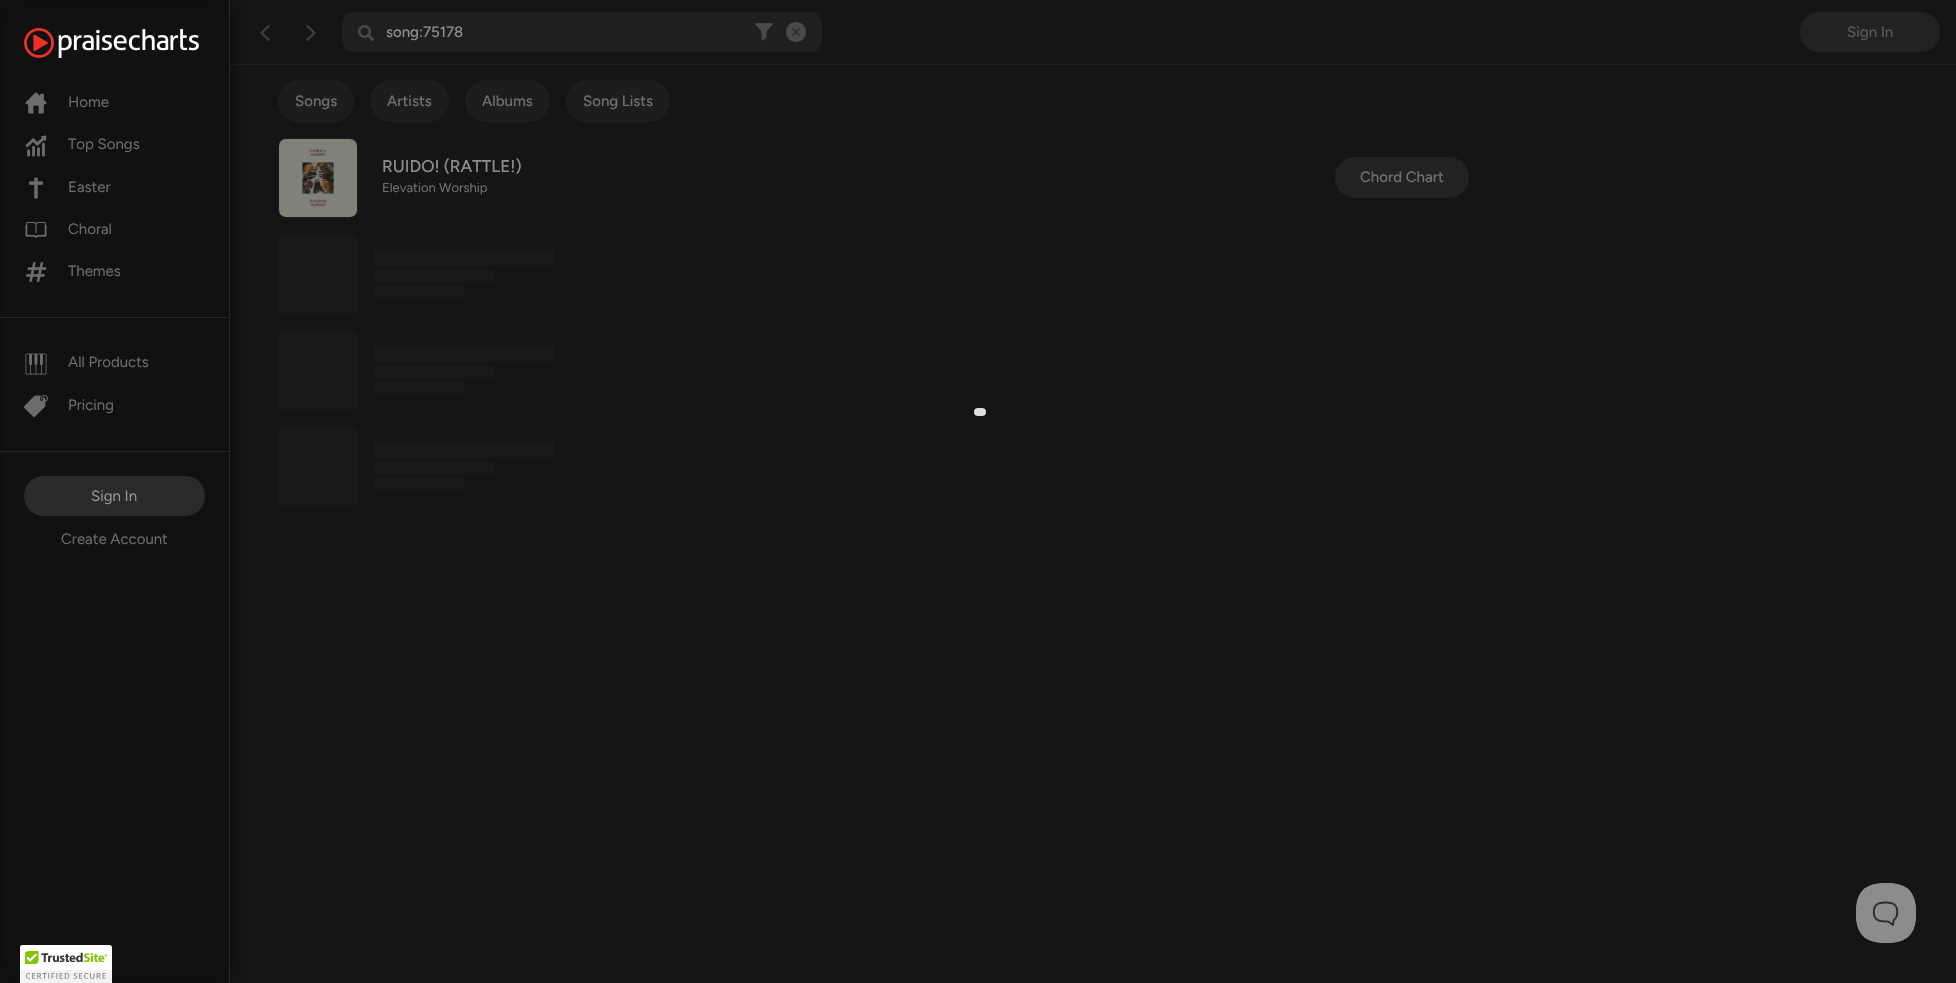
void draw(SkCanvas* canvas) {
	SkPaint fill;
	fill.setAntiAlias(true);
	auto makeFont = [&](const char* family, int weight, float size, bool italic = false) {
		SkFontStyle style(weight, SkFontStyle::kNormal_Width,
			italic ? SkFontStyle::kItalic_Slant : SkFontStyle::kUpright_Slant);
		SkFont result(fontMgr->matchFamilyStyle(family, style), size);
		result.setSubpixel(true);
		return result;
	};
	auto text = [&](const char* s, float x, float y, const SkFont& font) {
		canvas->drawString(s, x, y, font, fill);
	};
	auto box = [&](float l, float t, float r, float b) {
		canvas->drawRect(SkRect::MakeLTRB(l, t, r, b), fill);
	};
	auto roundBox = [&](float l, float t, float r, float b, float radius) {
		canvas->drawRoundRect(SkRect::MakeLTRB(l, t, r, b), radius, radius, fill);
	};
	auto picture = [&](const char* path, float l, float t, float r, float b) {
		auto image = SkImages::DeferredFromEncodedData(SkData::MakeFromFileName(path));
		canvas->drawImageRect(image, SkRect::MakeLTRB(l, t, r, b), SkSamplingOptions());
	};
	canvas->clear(0xFF151515);
	fill.setColor(0xFF202020);
	box(230, 64, 1956, 65);
	picture("image8.png", 260, 25, 270, 41);
	fill.setColor(0x80000000);
	fill.setMaskFilter(SkMaskFilter::MakeBlur(kNormal_SkBlurStyle, 11));
	canvas->drawRect(SkRect::MakeLTRB(0, -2, 230, 981), fill);
	fill.setMaskFilter(nullptr);
	fill.setColor(0xFF111111);
	box(4, 2, 226, 977);
	fill.setColor(0xFF272727);
	box(229, 0, 230, 983);
	picture("image0.png", 24, 28, 199, 58);
	box(0, 317, 229, 318);
	picture("image1.png", 25, 92, 47, 114);
	picture("image2.png", 25, 135, 47, 157);
	picture("image3.png", 29, 177, 43, 199);
	picture("image4.png", 25, 222, 47, 238);
	picture("image5.png", 26, 262, 47, 282);
	box(0, 451, 229, 452);
	picture("image6.png", 25, 353, 47, 375);
	picture("image7.png", 24, 395, 48, 417);
	fill.setColor(0xFF2B2B2C);
	roundBox(24, 476, 205, 516, 20);
	picture("image9.png", 306, 25, 316, 41);
	fill.setColor(0xFF1F1F1F);
	roundBox(342, 12, 822, 52, 12);
	picture("image10.png", 358, 25, 374, 41);
	picture("image11.png", 755, 23, 773, 41);
	picture("image12.png", 786, 22, 806, 42);
	fill.setColor(0xFF222223);
	roundBox(1800, 12, 1940, 52, 20);
	fill.setColor(0xFF1D1D1D);
	roundBox(278, 80, 354, 122, 21);
	roundBox(370, 80, 449, 122, 21);
	roundBox(465, 80, 550, 122, 21);
	roundBox(566, 80, 670, 122, 21);
	fill.setStyle(SkPaint::kStroke_Style);
	fill.setStrokeWidth(1);
	fill.setColor(0xFF1C1C1C);
	canvas->drawRoundRect(SkRect::MakeLTRB(278.5f, 138.5f, 357.5f, 217.5f), 7.5f, 7.5f, fill);
	picture("image13.png", 279, 139, 357, 217);
	fill.setStyle(SkPaint::kFill_Style);
	fill.setColor(0xFF222223);
	roundBox(1335, 157, 1469, 198, 20.5f);
	fill.setColor(0xFF191919);
	roundBox(278, 234, 358, 314, 8);
	box(374, 250, 554, 266);
	box(374, 270, 494, 282);
	box(374, 286, 464, 298);
	roundBox(278, 330, 358, 410, 8);
	box(374, 346, 554, 362);
	box(374, 366, 494, 378);
	box(374, 382, 464, 394);
	roundBox(278, 426, 358, 506, 8);
	box(374, 442, 554, 458);
	box(374, 462, 494, 474);
	box(374, 478, 464, 490);
	fill.setStyle(SkPaint::kStroke_Style);
	fill.setStrokeWidth(8);
	fill.setStrokeCap(SkPaint::kRound_Cap);
	fill.setColor(0xFFDDDDDD);
	canvas->drawPath(SkPathBuilder().moveTo(978, 412).lineTo(982, 412).detach(), fill);
	picture("image14.png", 1856, 883, 1916, 943);
	picture("image15.png", 20, 945, 112, 983);
	auto font1 = makeFont("Figtree", 400, 15);
	fill.setStyle(SkPaint::kFill_Style);
	fill.setColor(0xFF6B6B6B);
	text("Home", 68, 107, font1);
	text("Top Songs", 68, 149, font1);
	text("Easter", 68, 192, font1);
	text("Choral", 68, 234, font1);
	text("Themes", 68, 276, font1);
	text("All Products", 68, 367, font1);
	text("Pricing", 68, 410, font1);
	fill.setColor(0xFF959596);
	text("Sign In", 91, 501, font1);
	fill.setColor(0xFF6B6B6B);
	text("Create Account", 61, 544, font1);
	auto font2 = makeFont("Figtree", 500, 15);
	fill.setColor(0xFF8C8C8C);
	text("song:75178", 386, 37, font2);
	fill.setColor(0xFF575758);
	text("Sign In", 1847, 37, font2);
	fill.setColor(0xFF6E6F71);
	text("Songs", 295, 106, font2);
	text("Artists", 387, 106, font2);
	text("Albums", 482, 106, font2);
	text("Song Lists", 583, 106, font2);
	auto font3 = makeFont("Figtree", 500, 17);
	fill.setColor(0xFF8C8C8C);
	text("RUIDO! (RATTLE!)", 382, 172, font3);
	auto font4 = makeFont("Figtree", 400, 13);
	fill.setColor(0xFF6E6F71);
	text("Elevation Worship", 382, 192, font4);
	text("Chord Chart", 1360, 182, font2);
}
